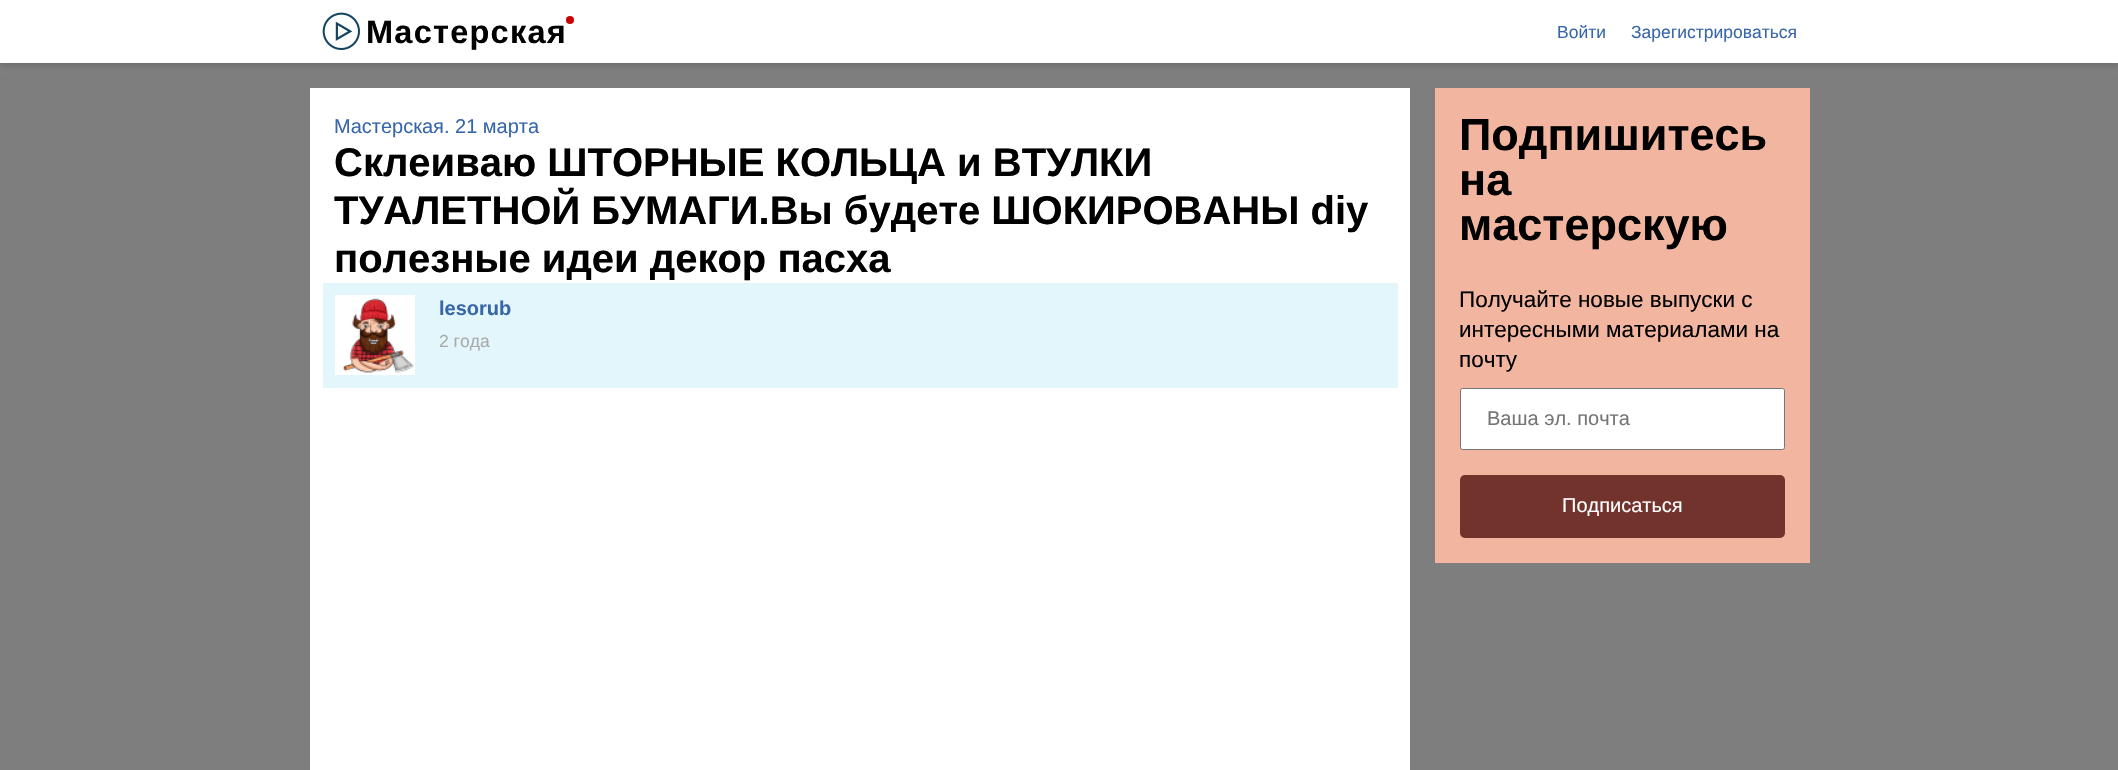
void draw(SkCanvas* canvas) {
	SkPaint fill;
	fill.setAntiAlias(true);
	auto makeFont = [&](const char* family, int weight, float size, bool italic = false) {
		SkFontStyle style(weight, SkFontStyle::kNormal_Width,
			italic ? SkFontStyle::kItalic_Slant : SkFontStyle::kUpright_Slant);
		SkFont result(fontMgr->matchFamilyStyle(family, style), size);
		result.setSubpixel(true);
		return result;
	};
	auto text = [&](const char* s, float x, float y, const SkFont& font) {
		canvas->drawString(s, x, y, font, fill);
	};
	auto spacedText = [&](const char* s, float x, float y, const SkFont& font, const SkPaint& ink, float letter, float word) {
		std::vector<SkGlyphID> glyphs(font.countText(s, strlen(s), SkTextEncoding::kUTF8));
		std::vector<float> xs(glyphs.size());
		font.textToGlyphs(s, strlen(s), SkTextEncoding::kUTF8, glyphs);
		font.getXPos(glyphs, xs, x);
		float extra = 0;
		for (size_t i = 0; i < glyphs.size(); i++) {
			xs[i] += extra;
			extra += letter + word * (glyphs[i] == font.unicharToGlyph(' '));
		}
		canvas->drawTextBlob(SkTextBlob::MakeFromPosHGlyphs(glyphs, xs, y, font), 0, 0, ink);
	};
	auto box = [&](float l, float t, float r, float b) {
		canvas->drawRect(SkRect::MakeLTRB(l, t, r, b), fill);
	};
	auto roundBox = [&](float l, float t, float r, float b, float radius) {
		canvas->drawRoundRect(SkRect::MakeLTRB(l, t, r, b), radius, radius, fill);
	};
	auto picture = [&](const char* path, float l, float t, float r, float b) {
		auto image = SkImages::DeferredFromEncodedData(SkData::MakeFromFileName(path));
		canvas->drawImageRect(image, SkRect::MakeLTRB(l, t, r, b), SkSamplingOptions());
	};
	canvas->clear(0xFF7E7E7E);
	fill.setColor(0x47202124);
	fill.setMaskFilter(SkMaskFilter::MakeBlur(kNormal_SkBlurStyle, 4));
	canvas->drawRect(SkRect::MakeLTRB(0, 1, 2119, 64), fill);
	fill.setMaskFilter(nullptr);
	fill.setColor(0xFFFFFFFF);
	box(0, 0, 2118, 63);
	picture("image0.png", 322, 12, 360, 50);
	fill.setColor(0xFFCC0000);
	canvas->drawCircle(570, 20, 4, fill);
	fill.setColor(0xFFFFFFFF);
	box(310, 88, 1410, 770);
	fill.setColor(0xFFE3F6FC);
	box(323, 283, 1398, 388);
	picture("image1.png", 335, 295, 415, 375);
	fill.setColor(0xFFF2B6A0);
	box(1435, 88, 1810, 563);
	fill.setColor(0xFFFFFFFF);
	canvas->drawRoundRect(SkRect::MakeLTRB(1460.5f, 388.5f, 1784.5f, 449.5f), 2, 2, fill);
	fill.setStyle(SkPaint::kStroke_Style);
	fill.setStrokeWidth(1);
	fill.setColor(0xFF767676);
	canvas->drawRoundRect(SkRect::MakeLTRB(1460.5f, 388.5f, 1784.5f, 449.5f), 2, 2, fill);
	fill.setStyle(SkPaint::kFill_Style);
	fill.setColor(0xFF73332D);
	roundBox(1460, 475, 1785, 538, 5);
	auto font1 = makeFont("Liberation Sans", 700, 32.5f);
	fill.setColor(0xFF000000);
	spacedText("Мастерская", 366, 43, font1, fill, 1.25f, 0);
	auto font2 = makeFont("Liberation Sans", 400, 17.5f);
	fill.setColor(0xFF3766A9);
	text("Войти", 1557, 38, font2);
	text("Зарегистрироваться", 1631, 38, font2);
	auto font3 = makeFont("Liberation Sans", 400, 20);
	text("Мастерская. 21 марта", 334, 133, font3);
	auto font4 = makeFont("Liberation Sans", 700, 40);
	fill.setColor(0xFF000000);
	text("Склеиваю ШТОРНЫЕ КОЛЬЦА и ВТУЛКИ", 334, 176, font4);
	text("ТУАЛЕТНОЙ БУМАГИ.Вы будете ШОКИРОВАНЫ diy", 334, 224, font4);
	text("полезные идеи декор пасха", 334, 272, font4);
	auto font5 = makeFont("Liberation Sans", 700, 20);
	fill.setColor(0xFF3766A9);
	text("lesorub", 439, 315, font5);
	fill.setColor(0xFFAAAAAA);
	text("2 года", 439, 347, font2);
	auto font6 = makeFont("Liberation Sans", 700, 45);
	fill.setColor(0xFF000000);
	text("Подпишитесь", 1459, 150, font6);
	text("на", 1459, 195, font6);
	text("мастерскую", 1459, 240, font6);
	auto font7 = makeFont("Liberation Sans", 400, 22.5f);
	text("Получайте новые выпуски с", 1459, 307, font7);
	text("интересными материалами на", 1459, 337, font7);
	text("почту", 1459, 367, font7);
	fill.setColor(0xFF757575);
	text("Ваша эл. почта", 1487, 425, font3);
	fill.setColor(0xFFFFFFFF);
	text("Подписаться", 1562, 512, font3);
}
